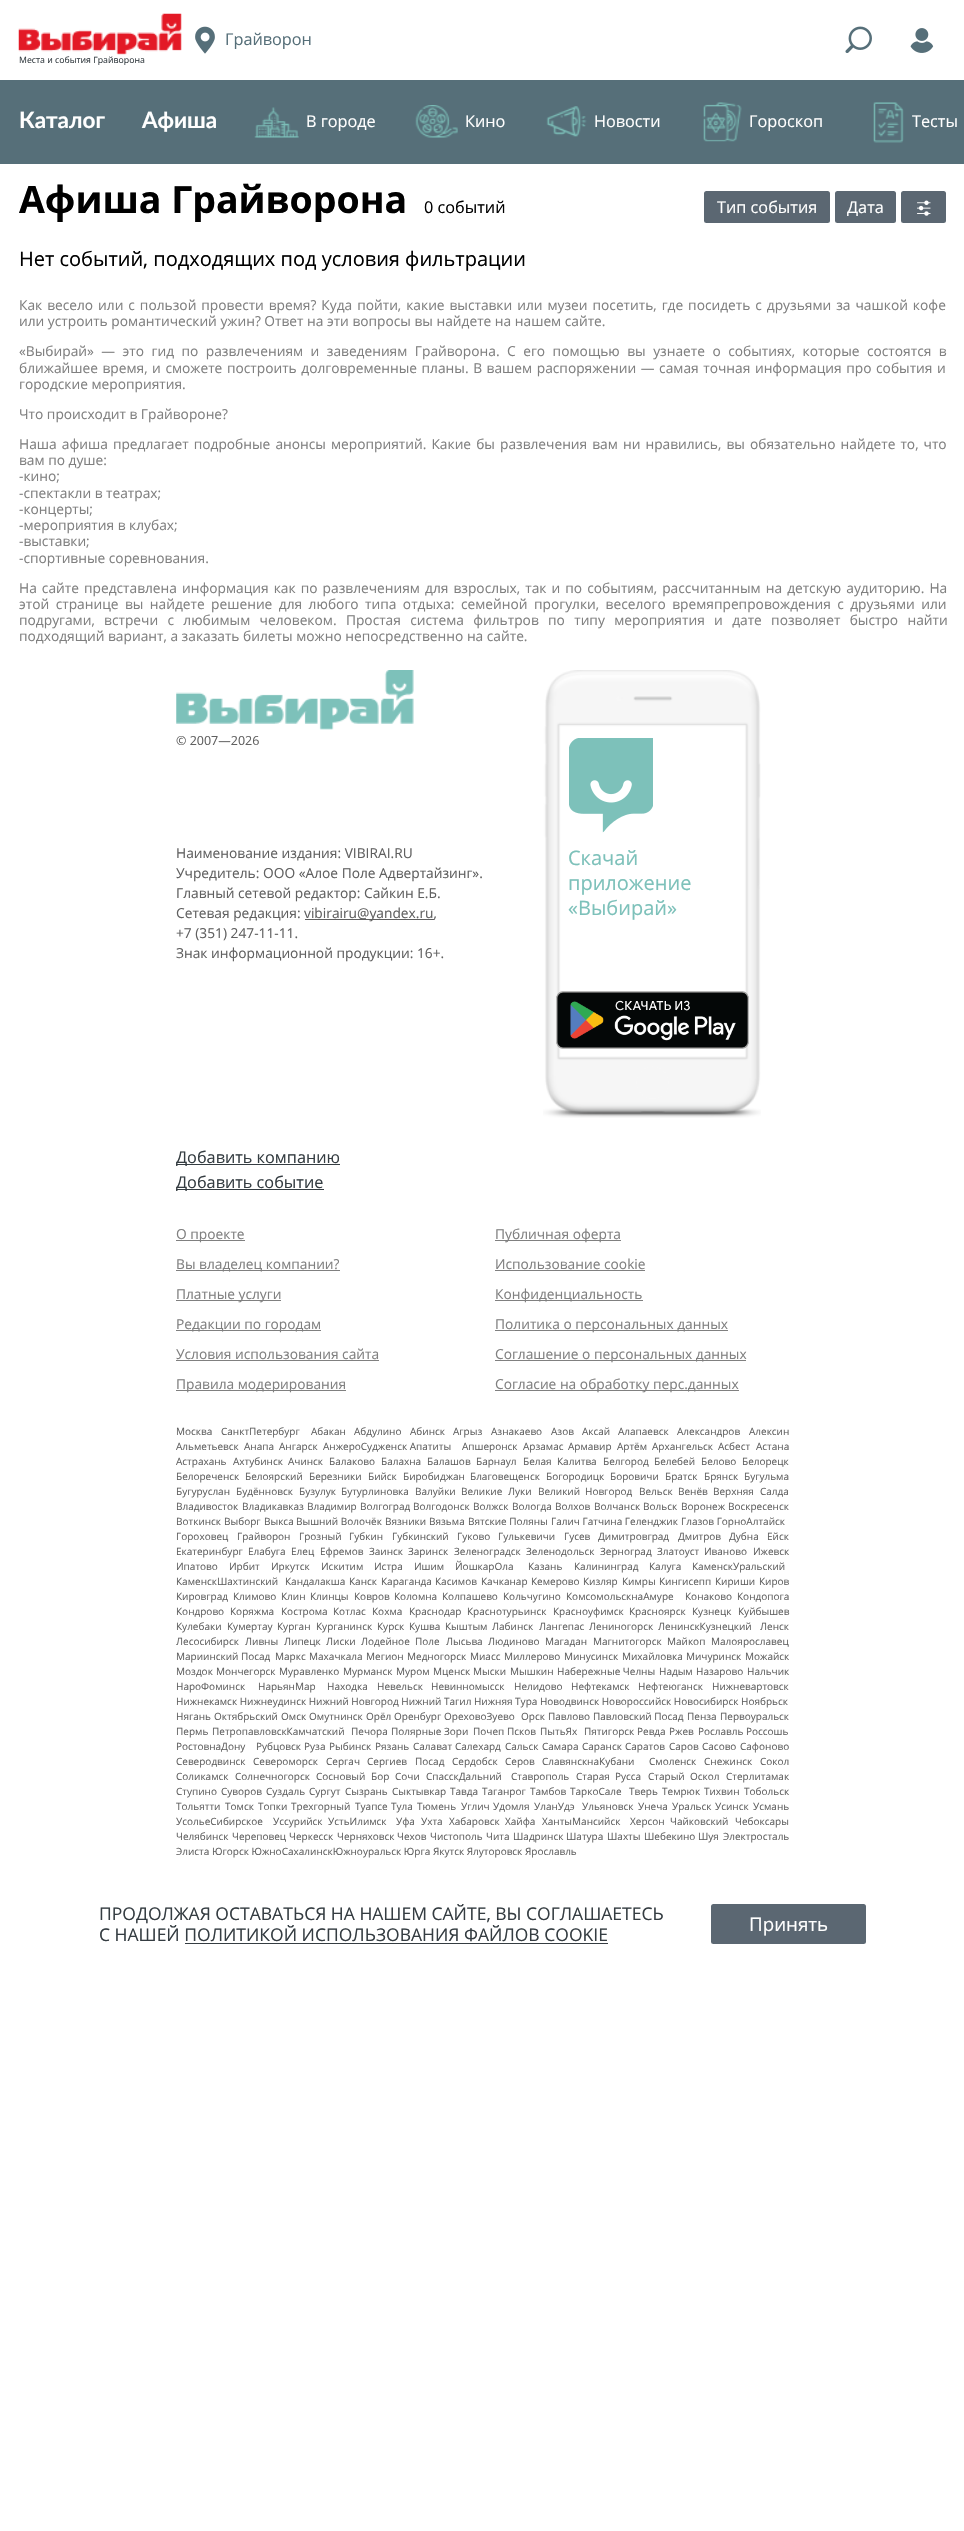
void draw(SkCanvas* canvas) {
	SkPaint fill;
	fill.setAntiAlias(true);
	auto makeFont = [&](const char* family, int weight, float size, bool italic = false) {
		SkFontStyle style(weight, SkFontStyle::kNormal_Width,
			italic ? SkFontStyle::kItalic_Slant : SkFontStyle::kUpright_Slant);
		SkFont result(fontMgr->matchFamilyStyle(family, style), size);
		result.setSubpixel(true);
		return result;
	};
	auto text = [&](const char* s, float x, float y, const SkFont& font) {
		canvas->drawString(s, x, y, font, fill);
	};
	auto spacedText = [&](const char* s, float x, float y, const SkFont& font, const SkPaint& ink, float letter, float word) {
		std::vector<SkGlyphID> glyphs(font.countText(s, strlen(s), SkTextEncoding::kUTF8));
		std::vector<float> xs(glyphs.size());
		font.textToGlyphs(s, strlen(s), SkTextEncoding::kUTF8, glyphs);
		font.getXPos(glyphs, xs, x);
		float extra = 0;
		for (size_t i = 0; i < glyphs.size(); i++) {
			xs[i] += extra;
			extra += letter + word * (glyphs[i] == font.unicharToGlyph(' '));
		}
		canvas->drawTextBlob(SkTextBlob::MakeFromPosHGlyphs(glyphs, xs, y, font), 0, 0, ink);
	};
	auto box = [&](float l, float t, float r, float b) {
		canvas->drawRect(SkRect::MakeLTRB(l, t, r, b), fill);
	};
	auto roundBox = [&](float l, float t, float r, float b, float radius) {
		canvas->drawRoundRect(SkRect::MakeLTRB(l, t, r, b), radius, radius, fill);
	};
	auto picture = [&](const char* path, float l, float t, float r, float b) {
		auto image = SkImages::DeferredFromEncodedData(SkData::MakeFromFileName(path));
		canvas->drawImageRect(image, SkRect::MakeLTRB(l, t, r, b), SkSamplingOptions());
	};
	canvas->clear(0xFFFFFFFF);
	picture("image0.png", 195, 26, 215, 54);
	picture("image1.png", 845, 26, 872, 53);
	picture("image2.png", 910, 28, 934, 53);
	picture("image3.png", 18, 13, 182, 55);
	fill.setColor(0xFF566F79);
	box(0, 80, 964, 164);
	picture("image4.png", 254, 107, 299, 138);
	picture("image5.png", 415, 105, 458, 138);
	picture("image6.png", 546, 106, 587, 137);
	picture("image7.png", 703, 102, 742, 142);
	picture("image8.png", 873, 102, 904, 143);
	fill.setColor(0xFF5B6772);
	roundBox(704, 191, 830, 223, 2.5f);
	roundBox(835, 191, 896, 223, 2.5f);
	roundBox(901, 191, 946, 223, 2.5f);
	picture("image9.png", 917, 200, 931, 216);
	picture("image10.png", 176, 670, 414, 730);
	fill.setColor(0xFF606060);
	box(305, 919, 434, 920);
	picture("image11.png", 543, 670, 761, 1118);
	picture("image12.png", 569, 738, 653, 833);
	picture("image13.png", 556, 991, 749, 1049);
	fill.setColor(0xFF353D42);
	box(176, 1164, 340, 1165);
	box(176, 1189, 324, 1190);
	fill.setColor(0xFF808080);
	box(176, 1240, 245, 1241);
	box(176, 1270, 340, 1271);
	box(176, 1300, 281, 1301);
	box(176, 1330, 321, 1331);
	box(176, 1360, 379, 1361);
	box(176, 1390, 346, 1391);
	box(495, 1240, 621, 1241);
	box(495, 1270, 645, 1271);
	box(495, 1300, 643, 1301);
	box(495, 1330, 728, 1331);
	box(495, 1360, 746, 1361);
	box(495, 1390, 739, 1391);
	fill.setColor(0xFF353D42);
	box(185, 1943, 608, 1944);
	fill.setColor(0xFF5B6772);
	roundBox(711, 1904, 866, 1944, 2.5f);
	auto font1 = makeFont("Open Sans", 400, 16.25f);
	fill.setColor(0xFF566F79);
	text("Грайворон", 225, 45, font1);
	auto font2 = makeFont("Open Sans", 400, 8.75f);
	fill.setColor(0xFF353D42);
	text("Места и события Грайворона", 19, 63, font2);
	auto font3 = makeFont("Lato", 700, 22.5f);
	fill.setColor(0xFFFFFFFF);
	text("Каталог", 19, 128, font3);
	text("Афиша", 142, 128, font3);
	text("В городе", 306, 127, font1);
	text("Кино", 465, 127, font1);
	text("Новости", 594, 127, font1);
	text("Гороскоп", 749, 127, font1);
	text("Тесты", 912, 127, font1);
	auto font4 = makeFont("Open Sans", 700, 37.5f);
	fill.setColor(0xFF000000);
	text("Афиша Грайворона", 19, 213, font4);
	text("0 событий", 424, 213, font1);
	fill.setColor(0xFFFFFFFF);
	text("Тип события", 717, 213, font1);
	text("Дата", 847, 213, font1);
	auto font5 = makeFont("Open Sans", 400, 20);
	fill.setColor(0xFF000000);
	text("Нет событий, подходящих под условия фильтрации", 19, 266, font5);
	auto font6 = makeFont("Open Sans", 400, 13.75f);
	fill.setColor(0xFF808080);
	spacedText("Как весело или с пользой провести время? Куда пойти, какие выставки или музеи посетить, где посидеть с друзьями за чашкой кофе", 19, 310, font6, fill, 0, 1.4f);
	text("или устроить романтический ужин? Ответ на эти вопросы вы найдете на нашем сайте.", 19, 326, font6);
	spacedText("«Выбирай» — это гид по развлечениям и заведениям Грайворона. С его помощью вы узнаете о событиях, которые состоятся в", 19, 356, font6, fill, 0, 3.9f);
	spacedText("ближайшее время, и сможете построить долговременные планы. В вашем распоряжении — самая точная информация про события и", 19, 373, font6, fill, 0, 1);
	text("городские мероприятия.", 19, 389, font6);
	text("Что происходит в Грайвороне?", 19, 419, font6);
	spacedText("Наша афиша предлагает подробные анонсы мероприятий. Какие бы развлечения вам ни нравились, вы обязательно найдете то, что", 19, 449, font6, fill, 0, 1.5f);
	text("вам по душе:", 19, 465, font6);
	text("-кино;", 19, 481, font6);
	text("-спектакли в театрах;", 19, 498, font6);
	text("-концерты;", 19, 514, font6);
	text("-мероприятия в клубах;", 19, 530, font6);
	text("-выставки;", 19, 546, font6);
	text("-спортивные соревнования.", 19, 563, font6);
	spacedText("На сайте представлена информация как по развлечениям для взрослых, так и по событиям, рассчитанным на детскую аудиторию. На", 19, 593, font6, fill, 0, 1.5f);
	spacedText("этой странице вы найдете решение для любого типа отдыха: семейной прогулки, веселого времяпрепровождения с друзьями или", 19, 609, font6, fill, 0, 2.9f);
	spacedText("подругами, встречи с любимым человеком. Простая система фильтров по типу мероприятия и дате позволяет быстро найти", 19, 625, font6, fill, 0, 5.75f);
	text("подходящий вариант, а заказать билеты можно непосредственно на сайте.", 19, 641, font6);
	auto font7 = makeFont("Open Sans", 400, 12.5f);
	fill.setColor(0xFF606060);
	text("© 2007—2026", 176, 745, font7);
	text("Наименование издания: VIBIRAI.RU", 176, 858, font6);
	text("Учредитель: ООО «Алое Поле Адвертайзинг».", 176, 878, font6);
	text("Главный сетевой редактор: Сайкин Е.Б.", 176, 898, font6);
	text("Сетевая редакция:", 176, 918, font6);
	text("vibirairu@yandex.ru,", 304, 918, font6);
	text("+7 (351) 247-11-11.", 176, 938, font6);
	text("Знак информационной продукции: 16+.", 176, 958, font6);
	fill.setColor(0xFF7DC1BA);
	text("Скачай", 568, 865, font5);
	text("приложение", 568, 890, font5);
	text("«Выбирай»", 568, 915, font5);
	fill.setColor(0xFF353D42);
	text("Добавить компанию", 176, 1163, font1);
	text("Добавить событие", 176, 1188, font1);
	fill.setColor(0xFF808080);
	text("О проекте", 176, 1239, font6);
	text("Вы владелец компании?", 176, 1269, font6);
	text("Платные услуги", 176, 1299, font6);
	text("Редакции по городам", 176, 1329, font6);
	text("Условия использования сайта", 176, 1359, font6);
	text("Правила модерирования", 176, 1389, font6);
	text("Публичная оферта", 495, 1239, font6);
	text("Использование cookie", 495, 1269, font6);
	text("Конфиденциальность", 495, 1299, font6);
	text("Политика о персональных данных", 495, 1329, font6);
	text("Соглашение о персональных данных", 495, 1359, font6);
	text("Согласие на обработку перс.данных", 495, 1389, font6);
	auto font8 = makeFont("Open Sans", 400, 10);
	fill.setColor(0xFF606060);
	text("Москва", 176, 1435, font8);
	text("Санкт‑Петербург", 221, 1435, font8);
	text("Абакан", 311, 1435, font8);
	text("Абдулино", 354, 1435, font8);
	text("Абинск", 410, 1435, font8);
	text("Агрыз", 453, 1435, font8);
	text("Азнакаево", 491, 1435, font8);
	text("Азов", 551, 1435, font8);
	text("Аксай", 582, 1435, font8);
	text("Алапаевск", 618, 1435, font8);
	text("Александров", 677, 1435, font8);
	text("Алексин", 749, 1435, font8);
	text("Альметьевск", 176, 1450, font8);
	text("Анапа", 244, 1450, font8);
	text("Ангарск", 279, 1450, font8);
	text("Анжеро‑Судженск Апатиты", 323, 1450, font8);
	text("Апшеронск", 462, 1450, font8);
	text("Арзамас", 523, 1450, font8);
	text("Армавир", 568, 1450, font8);
	text("Артём", 617, 1450, font8);
	text("Архангельск", 652, 1450, font8);
	text("Асбест", 718, 1450, font8);
	text("Астана", 756, 1450, font8);
	text("Астрахань", 176, 1465, font8);
	text("Ахтубинск", 233, 1465, font8);
	text("Ачинск", 288, 1465, font8);
	text("Балаково", 329, 1465, font8);
	text("Балахна", 381, 1465, font8);
	text("Балашов", 427, 1465, font8);
	text("Барнаул", 476, 1465, font8);
	text("Белая", 523, 1465, font8);
	text("Калитва", 557, 1465, font8);
	text("Белгород", 603, 1465, font8);
	text("Белебей", 654, 1465, font8);
	text("Белово", 701, 1465, font8);
	text("Белорецк", 742, 1465, font8);
	text("Белореченск", 176, 1480, font8);
	text("Белоярский", 245, 1480, font8);
	text("Березники", 309, 1480, font8);
	text("Бийск", 368, 1480, font8);
	text("Биробиджан", 403, 1480, font8);
	text("Благовещенск", 470, 1480, font8);
	text("Богородицк", 546, 1480, font8);
	text("Боровичи", 610, 1480, font8);
	text("Братск", 665, 1480, font8);
	text("Брянск", 704, 1480, font8);
	text("Бугульма", 744, 1480, font8);
	text("Бугуруслан", 176, 1495, font8);
	text("Будённовск", 236, 1495, font8);
	text("Бузулук", 299, 1495, font8);
	text("Бутурлиновка", 341, 1495, font8);
	text("Валуйки", 415, 1495, font8);
	text("Великие", 461, 1495, font8);
	text("Луки", 508, 1495, font8);
	text("Великий", 538, 1495, font8);
	text("Новгород", 585, 1495, font8);
	text("Вельск", 639, 1495, font8);
	text("Венёв", 678, 1495, font8);
	text("Верхняя", 713, 1495, font8);
	text("Салда", 760, 1495, font8);
	text("Владивосток", 176, 1510, font8);
	text("Владикавказ", 242, 1510, font8);
	text("Владимир", 307, 1510, font8);
	text("Волгоград", 360, 1510, font8);
	text("Волгодонск", 413, 1510, font8);
	text("Волжск", 473, 1510, font8);
	text("Вологда", 512, 1510, font8);
	text("Волхов", 555, 1510, font8);
	text("Волчанск", 594, 1510, font8);
	text("Вольск", 643, 1510, font8);
	text("Воронеж", 681, 1510, font8);
	text("Воскресенск", 728, 1510, font8);
	text("Воткинск", 176, 1525, font8);
	text("Выборг", 224, 1525, font8);
	text("Выкса", 264, 1525, font8);
	text("Вышний Волочёк", 296, 1525, font8);
	text("Вязники", 385, 1525, font8);
	text("Вязьма", 429, 1525, font8);
	text("Вятские Поляны", 468, 1525, font8);
	text("Галич Гатчина Геленджик", 551, 1525, font8);
	text("Глазов Горно‑Алтайск", 681, 1525, font8);
	text("Гороховец", 176, 1540, font8);
	text("Грайворон", 237, 1540, font8);
	text("Грозный", 299, 1540, font8);
	text("Губкин", 349, 1540, font8);
	text("Губкинский", 392, 1540, font8);
	text("Гуково", 457, 1540, font8);
	text("Гулькевичи", 498, 1540, font8);
	text("Гусев", 564, 1540, font8);
	text("Димитровград", 598, 1540, font8);
	text("Дмитров", 678, 1540, font8);
	text("Дубна", 729, 1540, font8);
	text("Ейск", 767, 1540, font8);
	text("Екатеринбург", 176, 1555, font8);
	text("Елабуга", 248, 1555, font8);
	text("Елец", 291, 1555, font8);
	text("Ефремов", 320, 1555, font8);
	text("Заинск", 369, 1555, font8);
	text("Заринск", 408, 1555, font8);
	text("Зеленоградск", 454, 1555, font8);
	text("Зеленодольск", 526, 1555, font8);
	text("Зерноград", 600, 1555, font8);
	text("Златоуст", 657, 1555, font8);
	text("Иваново", 704, 1555, font8);
	text("Ижевск", 753, 1555, font8);
	text("Ипатово", 176, 1570, font8);
	text("Ирбит", 229, 1570, font8);
	text("Иркутск", 271, 1570, font8);
	text("Искитим", 321, 1570, font8);
	text("Истра", 374, 1570, font8);
	text("Ишим", 414, 1570, font8);
	text("Йошкар‑Ола", 455, 1570, font8);
	text("Казань", 528, 1570, font8);
	text("Калининград", 574, 1570, font8);
	text("Калуга", 649, 1570, font8);
	text("Каменск‑Уральский", 692, 1570, font8);
	text("Каменск‑Шахтинский", 176, 1585, font8);
	text("Кандалакша", 285, 1585, font8);
	text("Канск", 349, 1585, font8);
	text("Караганда", 381, 1585, font8);
	text("Касимов", 435, 1585, font8);
	text("Качканар", 481, 1585, font8);
	text("Кемерово", 531, 1585, font8);
	text("Кизляр", 583, 1585, font8);
	text("Кимры", 622, 1585, font8);
	text("Кингисепп", 659, 1585, font8);
	text("Кириши", 715, 1585, font8);
	text("Киров", 759, 1585, font8);
	text("Кировград", 176, 1600, font8);
	text("Климово", 233, 1600, font8);
	text("Клин", 281, 1600, font8);
	text("Клинцы", 310, 1600, font8);
	text("Ковров", 354, 1600, font8);
	text("Коломна", 394, 1600, font8);
	text("Колпашево", 442, 1600, font8);
	text("Кольчугино", 503, 1600, font8);
	text("Комсомольск‑на‑Амуре", 566, 1600, font8);
	text("Конаково", 685, 1600, font8);
	text("Кондопога", 737, 1600, font8);
	text("Кондрово", 176, 1615, font8);
	text("Коряжма", 230, 1615, font8);
	text("Кострома", 281, 1615, font8);
	text("Котлас", 333, 1615, font8);
	text("Кохма", 372, 1615, font8);
	text("Краснодар", 409, 1615, font8);
	text("Краснотурьинск", 467, 1615, font8);
	text("Красноуфимск", 553, 1615, font8);
	text("Красноярск", 629, 1615, font8);
	text("Кузнецк", 692, 1615, font8);
	text("Куйбышев", 738, 1615, font8);
	text("Кулебаки", 176, 1630, font8);
	text("Кумертау", 227, 1630, font8);
	text("Курган", 277, 1630, font8);
	text("Курганинск", 316, 1630, font8);
	text("Курск", 377, 1630, font8);
	text("Кушва", 409, 1630, font8);
	text("Кыштым", 445, 1630, font8);
	text("Лабинск", 492, 1630, font8);
	text("Лангепас", 539, 1630, font8);
	text("Лениногорск", 589, 1630, font8);
	text("Ленинск‑Кузнецкий", 658, 1630, font8);
	text("Ленск", 760, 1630, font8);
	text("Лесосибирск", 176, 1645, font8);
	text("Ливны", 245, 1645, font8);
	text("Липецк", 284, 1645, font8);
	text("Лиски", 326, 1645, font8);
	text("Лодейное", 361, 1645, font8);
	text("Поле", 415, 1645, font8);
	text("Лысьва", 446, 1645, font8);
	text("Людиново", 488, 1645, font8);
	text("Магадан", 545, 1645, font8);
	text("Магнитогорск", 593, 1645, font8);
	text("Майкоп", 667, 1645, font8);
	text("Малоярославец", 711, 1645, font8);
	text("Мариинский Посад", 176, 1660, font8);
	text("Маркс", 275, 1660, font8);
	text("Махачкала", 309, 1660, font8);
	text("Мегион", 366, 1660, font8);
	text("Медногорск", 407, 1660, font8);
	text("Миасс", 470, 1660, font8);
	text("Миллерово", 504, 1660, font8);
	text("Минусинск", 564, 1660, font8);
	text("Михайловка", 622, 1660, font8);
	text("Мичуринск", 686, 1660, font8);
	text("Можайск", 745, 1660, font8);
	text("Моздок", 176, 1675, font8);
	text("Мончегорск", 216, 1675, font8);
	text("Муравленко", 279, 1675, font8);
	text("Мурманск", 343, 1675, font8);
	text("Муром", 396, 1675, font8);
	text("Мценск", 433, 1675, font8);
	text("Мыски", 473, 1675, font8);
	text("Мышкин", 510, 1675, font8);
	text("Набережные Челны", 557, 1675, font8);
	text("Надым", 659, 1675, font8);
	text("Назарово", 696, 1675, font8);
	text("Нальчик", 747, 1675, font8);
	text("Наро‑Фоминск", 176, 1690, font8);
	text("Нарьян‑Мар", 258, 1690, font8);
	text("Находка", 327, 1690, font8);
	text("Невельск", 377, 1690, font8);
	text("Невинномысск", 431, 1690, font8);
	text("Нелидово", 514, 1690, font8);
	text("Нефтекамск", 571, 1690, font8);
	text("Нефтеюганск", 638, 1690, font8);
	text("Нижневартовск", 712, 1690, font8);
	text("Нижнекамск Нижнеудинск Нижний Новгород Нижний Тагил Нижняя Тура Новодвинск Новороссийск Новосибирск Ноябрьск", 176, 1705, font8);
	text("Нягань", 176, 1720, font8);
	text("Октябрьский", 214, 1720, font8);
	text("Омск", 281, 1720, font8);
	text("Омутнинск", 309, 1720, font8);
	text("Орёл", 366, 1720, font8);
	text("Оренбург", 394, 1720, font8);
	text("Орехово‑Зуево", 444, 1720, font8);
	text("Орск", 521, 1720, font8);
	text("Павлово", 548, 1720, font8);
	text("Павловский Посад", 593, 1720, font8);
	text("Пенза", 687, 1720, font8);
	text("Первоуральск", 720, 1720, font8);
	text("Пермь", 176, 1735, font8);
	text("Петропавловск‑Камчатский", 212, 1735, font8);
	text("Печора", 351, 1735, font8);
	text("Полярные Зори", 391, 1735, font8);
	text("Почеп", 473, 1735, font8);
	text("Псков", 507, 1735, font8);
	text("Пыть‑Ях", 540, 1735, font8);
	text("Пятигорск", 584, 1735, font8);
	text("Ревда", 637, 1735, font8);
	text("Ржев", 669, 1735, font8);
	text("Рославль", 698, 1735, font8);
	text("Россошь", 746, 1735, font8);
	text("Ростов‑на‑Дону", 176, 1750, font8);
	text("Рубцовск", 256, 1750, font8);
	text("Руза", 304, 1750, font8);
	text("Рыбинск", 329, 1750, font8);
	text("Рязань", 375, 1750, font8);
	text("Салават", 413, 1750, font8);
	text("Салехард", 455, 1750, font8);
	text("Сальск", 505, 1750, font8);
	text("Самара", 542, 1750, font8);
	text("Саранск", 582, 1750, font8);
	text("Саратов", 625, 1750, font8);
	text("Саров", 669, 1750, font8);
	text("Сасово", 702, 1750, font8);
	text("Сафоново", 740, 1750, font8);
	text("Северодвинск", 176, 1765, font8);
	text("Североморск", 253, 1765, font8);
	text("Сергач", 326, 1765, font8);
	text("Сергиев", 367, 1765, font8);
	text("Посад", 415, 1765, font8);
	text("Сердобск", 452, 1765, font8);
	text("Серов", 505, 1765, font8);
	text("Славянск‑на‑Кубани", 542, 1765, font8);
	text("Смоленск", 649, 1765, font8);
	text("Снежинск", 704, 1765, font8);
	text("Сокол", 760, 1765, font8);
	text("Соликамск", 176, 1780, font8);
	text("Солнечногорск", 235, 1780, font8);
	text("Сосновый", 316, 1780, font8);
	text("Бор", 371, 1780, font8);
	text("Сочи", 395, 1780, font8);
	text("Спасск‑Дальний", 426, 1780, font8);
	text("Ставрополь", 511, 1780, font8);
	text("Старая", 576, 1780, font8);
	text("Русса", 615, 1780, font8);
	text("Старый", 648, 1780, font8);
	text("Оскол", 690, 1780, font8);
	text("Стерлитамак", 726, 1780, font8);
	text("Ступино", 176, 1795, font8);
	text("Суворов", 221, 1795, font8);
	text("Суздаль", 266, 1795, font8);
	text("Сургут", 309, 1795, font8);
	text("Сызрань", 345, 1795, font8);
	text("Сыктывкар", 392, 1795, font8);
	text("Тавда", 450, 1795, font8);
	text("Таганрог", 482, 1795, font8);
	text("Тамбов", 530, 1795, font8);
	text("Тарко‑Сале", 570, 1795, font8);
	text("Тверь", 629, 1795, font8);
	text("Темрюк", 662, 1795, font8);
	text("Тихвин", 704, 1795, font8);
	text("Тобольск", 744, 1795, font8);
	text("Тольятти", 176, 1810, font8);
	text("Томск", 225, 1810, font8);
	text("Топки", 258, 1810, font8);
	text("Трехгорный", 291, 1810, font8);
	text("Туапсе", 355, 1810, font8);
	text("Тула", 391, 1810, font8);
	text("Тюмень", 417, 1810, font8);
	text("Углич", 461, 1810, font8);
	text("Удомля", 493, 1810, font8);
	text("Улан‑Удэ", 534, 1810, font8);
	text("Ульяновск", 582, 1810, font8);
	text("Унеча", 638, 1810, font8);
	text("Уральск", 672, 1810, font8);
	text("Усинск", 715, 1810, font8);
	text("Усмань", 753, 1810, font8);
	text("Усолье‑Сибирское", 176, 1825, font8);
	text("Уссурийск", 273, 1825, font8);
	text("Усть‑Илимск", 328, 1825, font8);
	text("Уфа", 396, 1825, font8);
	text("Ухта", 421, 1825, font8);
	text("Хабаровск", 449, 1825, font8);
	text("Хайфа", 505, 1825, font8);
	text("Ханты‑Мансийск", 542, 1825, font8);
	text("Херсон", 630, 1825, font8);
	text("Чайковский", 670, 1825, font8);
	text("Чебоксары", 735, 1825, font8);
	text("Челябинск", 176, 1840, font8);
	text("Череповец", 232, 1840, font8);
	text("Черкесск", 289, 1840, font8);
	text("Черняховск", 337, 1840, font8);
	text("Чехов", 397, 1840, font8);
	text("Чистополь", 430, 1840, font8);
	text("Чита", 486, 1840, font8);
	text("Шадринск", 513, 1840, font8);
	text("Шатура", 566, 1840, font8);
	text("Шахты", 607, 1840, font8);
	text("Шебекино", 644, 1840, font8);
	text("Шуя", 698, 1840, font8);
	text("Электросталь", 723, 1840, font8);
	text("Элиста Югорск Южно‑СахалинскЮжноуральск Юрга Якутск Ялуторовск Ярославль", 176, 1855, font8);
	auto font9 = makeFont("Open Sans", 400, 17.5f);
	fill.setColor(0xFF353D42);
	text("ПРОДОЛЖАЯ ОСТАВАТЬСЯ НА НАШЕМ САЙТЕ, ВЫ СОГЛАШАЕТЕСЬ", 99, 1920, font9);
	text("С НАШЕЙ ПОЛИТИКОЙ ИСПОЛЬЗОВАНИЯ ФАЙЛОВ COOKIE", 99, 1941, font9);
	auto font10 = makeFont("Open Sans", 400, 18.75f);
	fill.setColor(0xFFFFFFFF);
	text("Принять", 749, 1931, font10);
}
